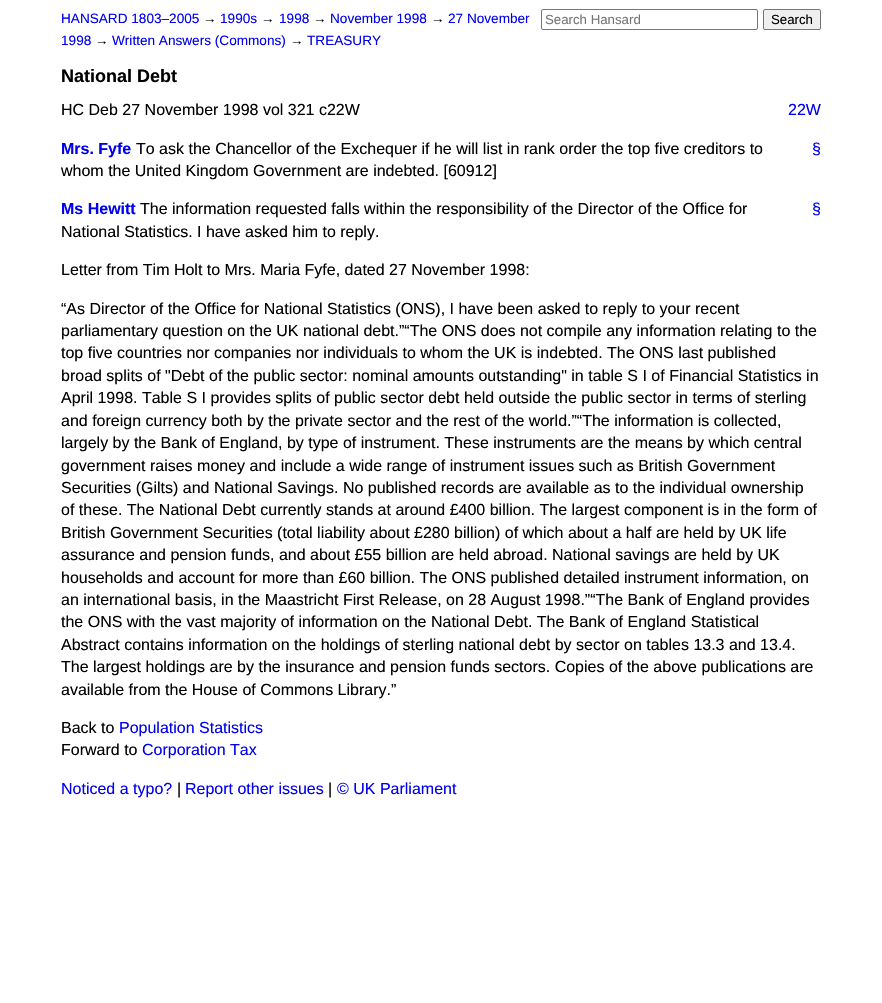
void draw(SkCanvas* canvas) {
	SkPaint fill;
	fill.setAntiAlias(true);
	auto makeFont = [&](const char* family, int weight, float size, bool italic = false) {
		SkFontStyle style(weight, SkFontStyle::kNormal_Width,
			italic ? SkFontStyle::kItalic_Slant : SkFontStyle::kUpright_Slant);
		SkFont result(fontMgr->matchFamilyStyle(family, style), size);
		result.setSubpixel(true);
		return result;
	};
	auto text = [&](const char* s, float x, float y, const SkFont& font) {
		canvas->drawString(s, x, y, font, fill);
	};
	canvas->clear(0xFFFFFFFF);
	fill.setStyle(SkPaint::kStroke_Style);
	fill.setStrokeWidth(1);
	fill.setColor(0xFF767676);
	canvas->drawRoundRect(SkRect::MakeLTRB(541.5f, 9.5f, 757.5f, 29.5f), 1.5f, 1.5f, fill);
	fill.setStyle(SkPaint::kFill_Style);
	fill.setColor(0xFFEFEFEF);
	canvas->drawRoundRect(SkRect::MakeLTRB(763.5f, 9.5f, 820.5f, 29.5f), 1.5f, 1.5f, fill);
	fill.setStyle(SkPaint::kStroke_Style);
	fill.setColor(0xFF767676);
	canvas->drawRoundRect(SkRect::MakeLTRB(763.5f, 9.5f, 820.5f, 29.5f), 1.5f, 1.5f, fill);
	auto font1 = makeFont("Liberation Sans", 400, 13.6f);
	fill.setStyle(SkPaint::kFill_Style);
	fill.setColor(0xFF0000EE);
	text("HANSARD 1803–2005", 61, 23, font1);
	fill.setColor(0xFF000000);
	text("→", 203, 23, font1);
	fill.setColor(0xFF0000EE);
	text("1990s", 220, 23, font1);
	fill.setColor(0xFF000000);
	text("→", 261, 23, font1);
	fill.setColor(0xFF0000EE);
	text("1998", 279, 23, font1);
	fill.setColor(0xFF000000);
	text("→", 313, 23, font1);
	fill.setColor(0xFF0000EE);
	text("November 1998", 330, 23, font1);
	fill.setColor(0xFF000000);
	text("→", 431, 23, font1);
	fill.setColor(0xFF0000EE);
	text("27 November", 448, 23, font1);
	text("1998", 61, 45, font1);
	fill.setColor(0xFF000000);
	text("→", 95, 45, font1);
	fill.setColor(0xFF0000EE);
	text("Written Answers (Commons)", 112, 45, font1);
	fill.setColor(0xFF000000);
	text("→", 290, 45, font1);
	fill.setColor(0xFF0000EE);
	text("TREASURY", 307, 45, font1);
	auto font2 = makeFont("Liberation Sans", 400, 13.25f);
	fill.setColor(0xFF757575);
	text("Search Hansard", 545, 24, font2);
	fill.setColor(0xFF000000);
	text("Search", 771, 24, font2);
	auto font3 = makeFont("Liberation Sans", 700, 18);
	text("National Debt", 61, 82, font3);
	auto font4 = makeFont("Liberation Sans", 400, 16);
	text("HC Deb 27 November 1998 vol 321 c22W", 61, 115, font4);
	fill.setColor(0xFF0000EE);
	text("22W", 788, 115, font4);
	auto font5 = makeFont("Liberation Sans", 700, 16);
	text("Mrs. Fyfe", 61, 154, font5);
	fill.setColor(0xFF000000);
	text("To ask the Chancellor of the Exchequer if he will list in rank order the top five creditors to", 136, 154, font4);
	fill.setColor(0xFF0000EE);
	text("§", 812, 154, font4);
	fill.setColor(0xFF000000);
	text("whom the United Kingdom Government are indebted. [60912]", 61, 176, font4);
	fill.setColor(0xFF0000EE);
	text("Ms Hewitt", 61, 214, font5);
	fill.setColor(0xFF000000);
	text("The information requested falls within the responsibility of the Director of the Office for", 140, 214, font4);
	fill.setColor(0xFF0000EE);
	text("§", 812, 214, font4);
	fill.setColor(0xFF000000);
	text("National Statistics. I have asked him to reply.", 61, 237, font4);
	text("Letter from Tim Holt to Mrs. Maria Fyfe, dated 27 November 1998:", 61, 275, font4);
	text("“As Director of the Office for National Statistics (ONS), I have been asked to reply to your recent", 61, 314, font4);
	text("parliamentary question on the UK national debt.”“The ONS does not compile any information relating to the", 61, 336, font4);
	text("top five countries nor companies nor individuals to whom the UK is indebted. The ONS last published", 61, 358, font4);
	text("broad splits of \"Debt of the public sector: nominal amounts outstanding\" in table S I of Financial Statistics in", 61, 381, font4);
	text("April 1998. Table S I provides splits of public sector debt held outside the public sector in terms of sterling", 61, 403, font4);
	text("and foreign currency both by the private sector and the rest of the world.”“The information is collected,", 61, 426, font4);
	text("largely by the Bank of England, by type of instrument. These instruments are the means by which central", 61, 448, font4);
	text("government raises money and include a wide range of instrument issues such as British Government", 61, 471, font4);
	text("Securities (Gilts) and National Savings. No published records are available as to the individual ownership", 61, 493, font4);
	text("of these. The National Debt currently stands at around £400 billion. The largest component is in the form of", 61, 515, font4);
	text("British Government Securities (total liability about £280 billion) of which about a half are held by UK life", 61, 538, font4);
	text("assurance and pension funds, and about £55 billion are held abroad. National savings are held by UK", 61, 560, font4);
	text("households and account for more than £60 billion. The ONS published detailed instrument information, on", 61, 583, font4);
	text("an international basis, in the Maastricht First Release, on 28 August 1998.”“The Bank of England provides", 61, 605, font4);
	text("the ONS with the vast majority of information on the National Debt. The Bank of England Statistical", 61, 627, font4);
	text("Abstract contains information on the holdings of sterling national debt by sector on tables 13.3 and 13.4.", 61, 650, font4);
	text("The largest holdings are by the insurance and pension funds sectors. Copies of the above publications are", 61, 672, font4);
	text("available from the House of Commons Library.”", 61, 695, font4);
	text("Back to", 61, 733, font4);
	fill.setColor(0xFF0000EE);
	text("Population Statistics", 119, 733, font4);
	fill.setColor(0xFF000000);
	text("Forward to", 61, 755, font4);
	fill.setColor(0xFF0000EE);
	text("Corporation Tax", 142, 755, font4);
	text("Noticed a typo?", 61, 794, font4);
	fill.setColor(0xFF000000);
	text("|", 177, 794, font4);
	fill.setColor(0xFF0000EE);
	text("Report other issues", 185, 794, font4);
	fill.setColor(0xFF000000);
	text("|", 328, 794, font4);
	fill.setColor(0xFF0000EE);
	text("© UK Parliament", 337, 794, font4);
}
